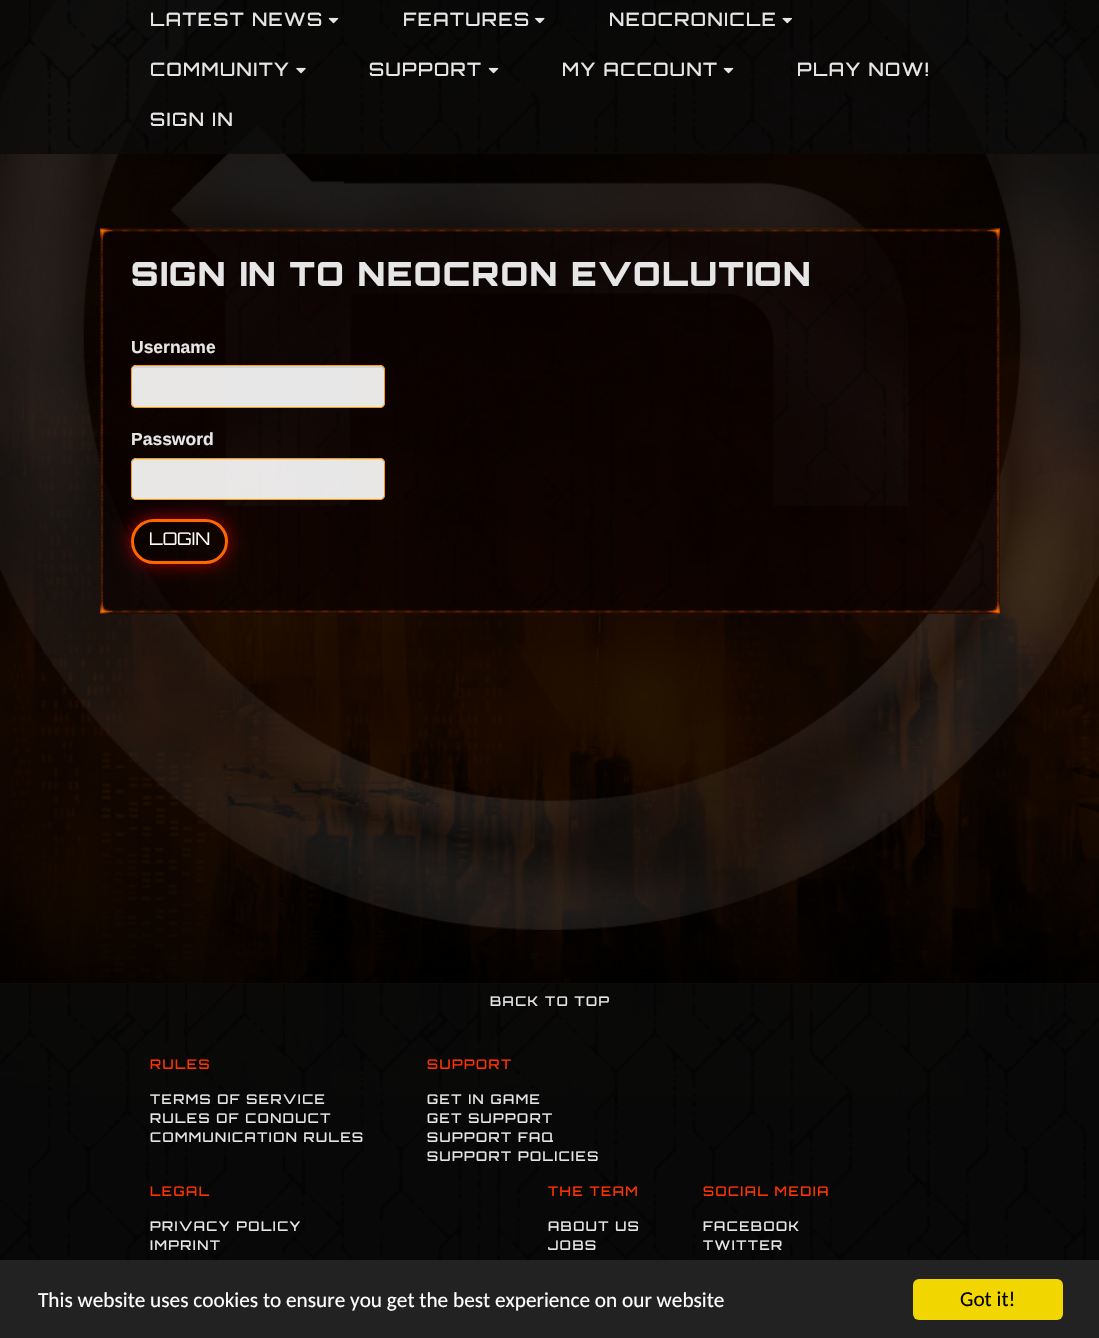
void draw(SkCanvas* canvas) {
	SkPaint fill;
	fill.setAntiAlias(true);
	auto makeFont = [&](const char* family, int weight, float size, bool italic = false) {
		SkFontStyle style(weight, SkFontStyle::kNormal_Width,
			italic ? SkFontStyle::kItalic_Slant : SkFontStyle::kUpright_Slant);
		SkFont result(fontMgr->matchFamilyStyle(family, style), size);
		result.setSubpixel(true);
		return result;
	};
	auto text = [&](const char* s, float x, float y, const SkFont& font) {
		canvas->drawString(s, x, y, font, fill);
	};
	auto spacedText = [&](const char* s, float x, float y, const SkFont& font, const SkPaint& ink, float letter, float word) {
		std::vector<SkGlyphID> glyphs(font.countText(s, strlen(s), SkTextEncoding::kUTF8));
		std::vector<float> xs(glyphs.size());
		font.textToGlyphs(s, strlen(s), SkTextEncoding::kUTF8, glyphs);
		font.getXPos(glyphs, xs, x);
		float extra = 0;
		for (size_t i = 0; i < glyphs.size(); i++) {
			xs[i] += extra;
			extra += letter + word * (glyphs[i] == font.unicharToGlyph(' '));
		}
		canvas->drawTextBlob(SkTextBlob::MakeFromPosHGlyphs(glyphs, xs, y, font), 0, 0, ink);
	};
	auto box = [&](float l, float t, float r, float b) {
		canvas->drawRect(SkRect::MakeLTRB(l, t, r, b), fill);
	};
	auto roundBox = [&](float l, float t, float r, float b, float radius) {
		canvas->drawRoundRect(SkRect::MakeLTRB(l, t, r, b), radius, radius, fill);
	};
	auto picture = [&](const char* path, float l, float t, float r, float b) {
		auto image = SkImages::DeferredFromEncodedData(SkData::MakeFromFileName(path));
		canvas->drawImageRect(image, SkRect::MakeLTRB(l, t, r, b), SkSamplingOptions());
	};
	canvas->clear(0xFF000000);
	picture("image0.png", 0, 0, 1099, 1097);
	fill.setColor(0xCC0A0A0A);
	box(0, 0, 1099, 154);
	picture("image1.png", 0, 0, 1099, 154);
	picture("image2.png", 328, 17, 339, 24);
	picture("image3.png", 535, 17, 545, 24);
	picture("image4.png", 782, 17, 792, 24);
	picture("image5.png", 296, 67, 306, 74);
	picture("image6.png", 488, 67, 499, 74);
	picture("image7.png", 723, 67, 734, 74);
	fill.setColor(0xB30A0000);
	box(100, 229, 1000, 614);
	picture("image8.png", 100, 228, 1000, 613);
	picture("image9.png", 100, 228, 1000, 614);
	fill.setColor(0xE6FFFFFF);
	roundBox(131, 365, 385, 408, 5);
	fill.setColor(0xFFD5D5D4);
	canvas->drawPath(SkPathBuilder().moveTo(136, 368).lineTo(380, 368).cubicTo(382, 368, 384, 369, 384, 371).lineTo(384, 370).cubicTo(384, 368, 382, 366, 380, 366).lineTo(137, 366).cubicTo(135, 366, 134, 367, 133, 369).close().detach(), fill);
	fill.setStyle(SkPaint::kStroke_Style);
	fill.setStrokeWidth(1);
	fill.setColor(0xFFFF9900);
	canvas->drawRoundRect(SkRect::MakeLTRB(131.5f, 365.5f, 384.5f, 407.5f), 4.5f, 4.5f, fill);
	fill.setStyle(SkPaint::kFill_Style);
	fill.setColor(0xE6FFFFFF);
	roundBox(131, 458, 385, 500, 5);
	fill.setColor(0xFFD6D5D5);
	canvas->drawPath(SkPathBuilder().moveTo(136, 460).lineTo(380, 460).cubicTo(382, 460, 384, 462, 384, 464).lineTo(384, 463).cubicTo(384, 461, 382, 459, 380, 459).lineTo(137, 459).cubicTo(136, 459, 134, 460, 134, 461).close().detach(), fill);
	fill.setStyle(SkPaint::kStroke_Style);
	fill.setColor(0xFFFF9900);
	canvas->drawRoundRect(SkRect::MakeLTRB(131.5f, 458.5f, 384.5f, 499.5f), 4.5f, 4.5f, fill);
	canvas->save();
	canvas->clipPath(SkPathBuilder(SkPathFillType::kEvenOdd).moveTo(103, 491).lineTo(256, 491).lineTo(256, 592).lineTo(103, 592).close().moveTo(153.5f, 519).lineTo(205.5f, 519).cubicTo(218, 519, 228, 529, 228, 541.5f).cubicTo(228, 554, 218, 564, 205.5f, 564).lineTo(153.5f, 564).cubicTo(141, 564, 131, 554, 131, 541.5f).cubicTo(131, 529, 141, 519, 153.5f, 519).close().detach(), true);
	fill.setStyle(SkPaint::kFill_Style);
	fill.setColor(0xBFCC0000);
	fill.setMaskFilter(SkMaskFilter::MakeBlur(kNormal_SkBlurStyle, 9));
	canvas->drawRoundRect(SkRect::MakeLTRB(131, 519, 228, 564), 22.5f, 22.5f, fill);
	fill.setMaskFilter(nullptr);
	canvas->restore();
	fill.setStyle(SkPaint::kStroke_Style);
	fill.setStrokeWidth(3);
	fill.setColor(0xFFFF6600);
	canvas->drawRoundRect(SkRect::MakeLTRB(132.5f, 520.5f, 226.5f, 562.5f), 21, 21, fill);
	fill.setStyle(SkPaint::kFill_Style);
	fill.setColor(0xCC0A0A0A);
	box(0, 984, 1099, 1260);
	picture("image10.png", 0, 982, 1099, 1260);
	fill.setColor(0xFF0A0A0A);
	box(0, 983, 1099, 984);
	fill.setColor(0xFF222222);
	box(0, 1260, 1099, 1338);
	fill.setColor(0xFFF1D600);
	roundBox(913, 1279, 1063, 1320, 6);
	auto font1 = makeFont("Orbitron", 500, 18.25f);
	fill.setColor(0xFFE6E6E6);
	spacedText("LATEST NEWS", 150, 26, font1, fill, 1.5f, 0);
	spacedText("FEATURES", 403, 26, font1, fill, 1.5f, 0);
	spacedText("NEOCRONICLE", 609, 26, font1, fill, 1.5f, 0);
	spacedText("COMMUNITY", 150, 76, font1, fill, 1.5f, 0);
	spacedText("SUPPORT", 369, 76, font1, fill, 1.5f, 0);
	spacedText("MY ACCOUNT", 562, 76, font1, fill, 1.5f, 0);
	spacedText("PLAY NOW!", 797, 76, font1, fill, 1.5f, 0);
	spacedText("SIGN IN", 150, 126, font1, fill, 1.5f, 0);
	auto font2 = makeFont("Orbitron", 900, 33.3f);
	spacedText("SIGN IN TO NEOCRON EVOLUTION", 131, 286, font2, fill, 1.5f, 0);
	auto font3 = makeFont("Liberation Sans", 700, 17.5f);
	text("Username", 131, 353, font3);
	text("Password", 131, 445, font3);
	auto font4 = makeFont("Orbitron", 300, 17.5f);
	fill.setColor(0xFFFFFFFF);
	text("LOGIN", 149, 545, font4);
	auto font5 = makeFont("Orbitron", 500, 13.3f);
	fill.setColor(0xFFE6E6E6);
	spacedText("BACK TO TOP", 490, 1006, font5, fill, 1.5f, 0);
	fill.setColor(0xFFFF3300);
	spacedText("RULES", 150, 1069, font5, fill, 1.5f, 0);
	fill.setColor(0xFFE6E6E6);
	spacedText("TERMS OF SERVICE", 150, 1104, font5, fill, 1.5f, 0);
	spacedText("RULES OF CONDUCT", 150, 1123, font5, fill, 1.5f, 0);
	spacedText("COMMUNICATION RULES", 150, 1142, font5, fill, 1.5f, 0);
	fill.setColor(0xFFFF3300);
	spacedText("SUPPORT", 427, 1069, font5, fill, 1.5f, 0);
	fill.setColor(0xFFE6E6E6);
	spacedText("GET IN GAME", 427, 1104, font5, fill, 1.5f, 0);
	spacedText("GET SUPPORT", 427, 1123, font5, fill, 1.5f, 0);
	spacedText("SUPPORT FAQ", 427, 1142, font5, fill, 1.5f, 0);
	spacedText("SUPPORT POLICIES", 427, 1161, font5, fill, 1.5f, 0);
	fill.setColor(0xFFFF3300);
	spacedText("LEGAL", 150, 1196, font5, fill, 1.5f, 0);
	fill.setColor(0xFFE6E6E6);
	spacedText("PRIVACY POLICY", 150, 1231, font5, fill, 1.5f, 0);
	spacedText("IMPRINT", 150, 1250, font5, fill, 1.5f, 0);
	fill.setColor(0xFFFF3300);
	spacedText("THE TEAM", 548, 1196, font5, fill, 1.5f, 0);
	fill.setColor(0xFFE6E6E6);
	spacedText("ABOUT US", 548, 1231, font5, fill, 1.5f, 0);
	spacedText("JOBS", 548, 1250, font5, fill, 1.5f, 0);
	fill.setColor(0xFFFF3300);
	spacedText("SOCIAL MEDIA", 703, 1196, font5, fill, 1.5f, 0);
	fill.setColor(0xFFE6E6E6);
	spacedText("FACEBOOK", 703, 1231, font5, fill, 1.5f, 0);
	spacedText("TWITTER", 703, 1250, font5, fill, 1.5f, 0);
	auto font6 = makeFont("Carlito", 400, 21.25f);
	fill.setColor(0xFFFFFFFF);
	text("This website uses cookies to ensure you get the best experience on our website", 38, 1307, font6);
	fill.setColor(0xFF000000);
	text("Got it!", 960, 1306, font6);
}
